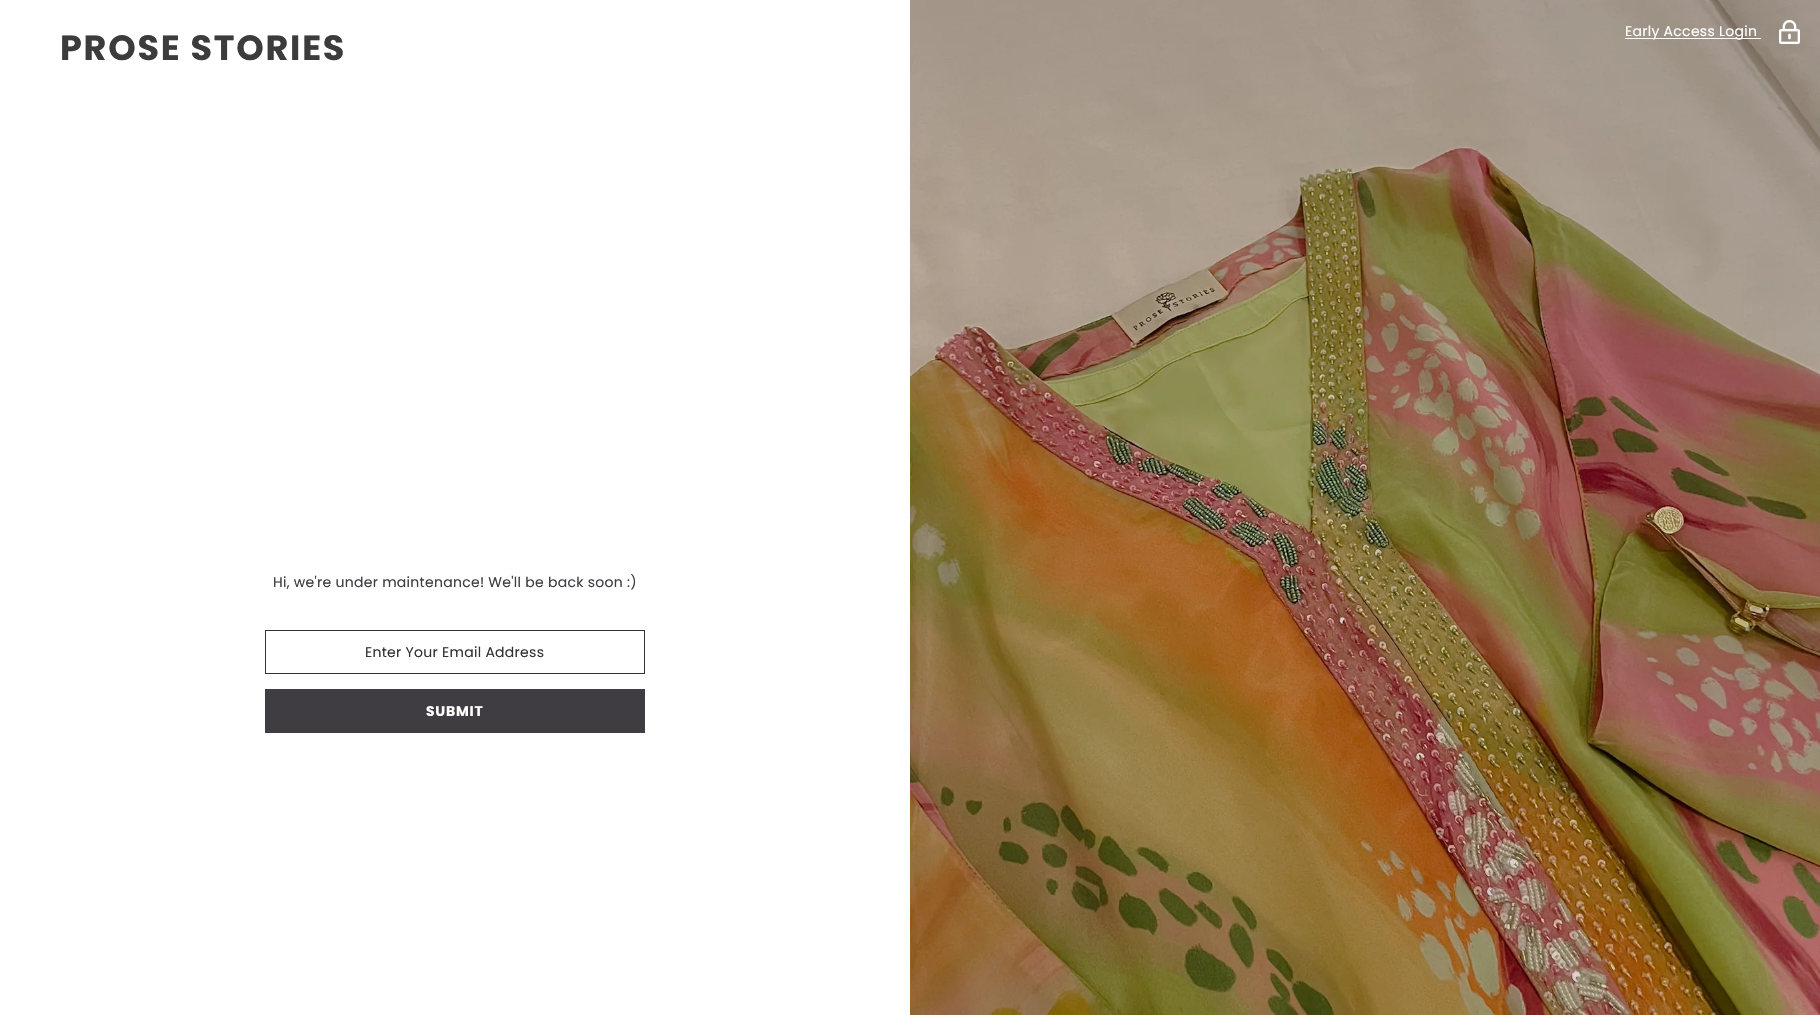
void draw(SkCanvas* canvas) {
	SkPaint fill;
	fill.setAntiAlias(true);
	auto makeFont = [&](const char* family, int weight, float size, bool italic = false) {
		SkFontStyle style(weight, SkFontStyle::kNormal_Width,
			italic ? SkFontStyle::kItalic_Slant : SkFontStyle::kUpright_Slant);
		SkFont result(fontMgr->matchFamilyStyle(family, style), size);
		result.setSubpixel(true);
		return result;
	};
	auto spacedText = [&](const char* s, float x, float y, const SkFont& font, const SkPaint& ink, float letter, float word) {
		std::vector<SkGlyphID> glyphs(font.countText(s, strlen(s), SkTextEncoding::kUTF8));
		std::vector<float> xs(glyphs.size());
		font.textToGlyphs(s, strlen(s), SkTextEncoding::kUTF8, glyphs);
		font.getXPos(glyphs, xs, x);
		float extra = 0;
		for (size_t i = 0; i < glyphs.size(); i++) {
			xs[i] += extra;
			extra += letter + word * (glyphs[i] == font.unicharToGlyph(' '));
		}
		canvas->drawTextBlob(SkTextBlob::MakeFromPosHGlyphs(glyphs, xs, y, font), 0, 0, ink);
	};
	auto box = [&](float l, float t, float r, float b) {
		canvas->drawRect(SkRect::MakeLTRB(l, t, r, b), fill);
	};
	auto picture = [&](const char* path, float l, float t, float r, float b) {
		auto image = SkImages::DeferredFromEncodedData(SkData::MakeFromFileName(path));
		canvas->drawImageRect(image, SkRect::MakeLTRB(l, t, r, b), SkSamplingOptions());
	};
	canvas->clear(0xFFFFFFFF);
	picture("image0.png", 910, 0, 1820, 1015);
	fill.setColor(0xFFFFFFFF);
	box(1625, 38, 1761, 39);
	picture("image1.png", 1779, 20, 1800, 44);
	fill.setStyle(SkPaint::kStroke_Style);
	fill.setStrokeWidth(1);
	fill.setColor(0xFF323232);
	canvas->drawRect(SkRect::MakeLTRB(265.5f, 630.5f, 644.5f, 673.5f), fill);
	fill.setStyle(SkPaint::kFill_Style);
	fill.setColor(0xFF3F3C42);
	box(265, 689, 645, 733);
	auto font1 = makeFont("Poppins", 400, 14);
	fill.setColor(0xFFFFFFFF);
	spacedText("Early Access Login", 1625, 36, font1, fill, 0.28f, 0);
	auto font2 = makeFont("Poppins", 700, 35);
	fill.setColor(0xFF3C3C3C);
	spacedText("PROSE STORIES", 60, 60, font2, fill, 1.75f, 0);
	fill.setColor(0xFF3F3C42);
	spacedText("Hi, we're under maintenance! We'll be back soon :)", 273, 587, font1, fill, 0.28f, 0);
	fill.setColor(0xFF323232);
	spacedText("Enter Your Email Address", 365, 657, font1, fill, 0.28f, 0);
	auto font3 = makeFont("Poppins", 700, 14);
	fill.setColor(0xFFFFFFFF);
	spacedText("SUBMIT", 426, 716, font3, fill, 0.75f, 0);
}
